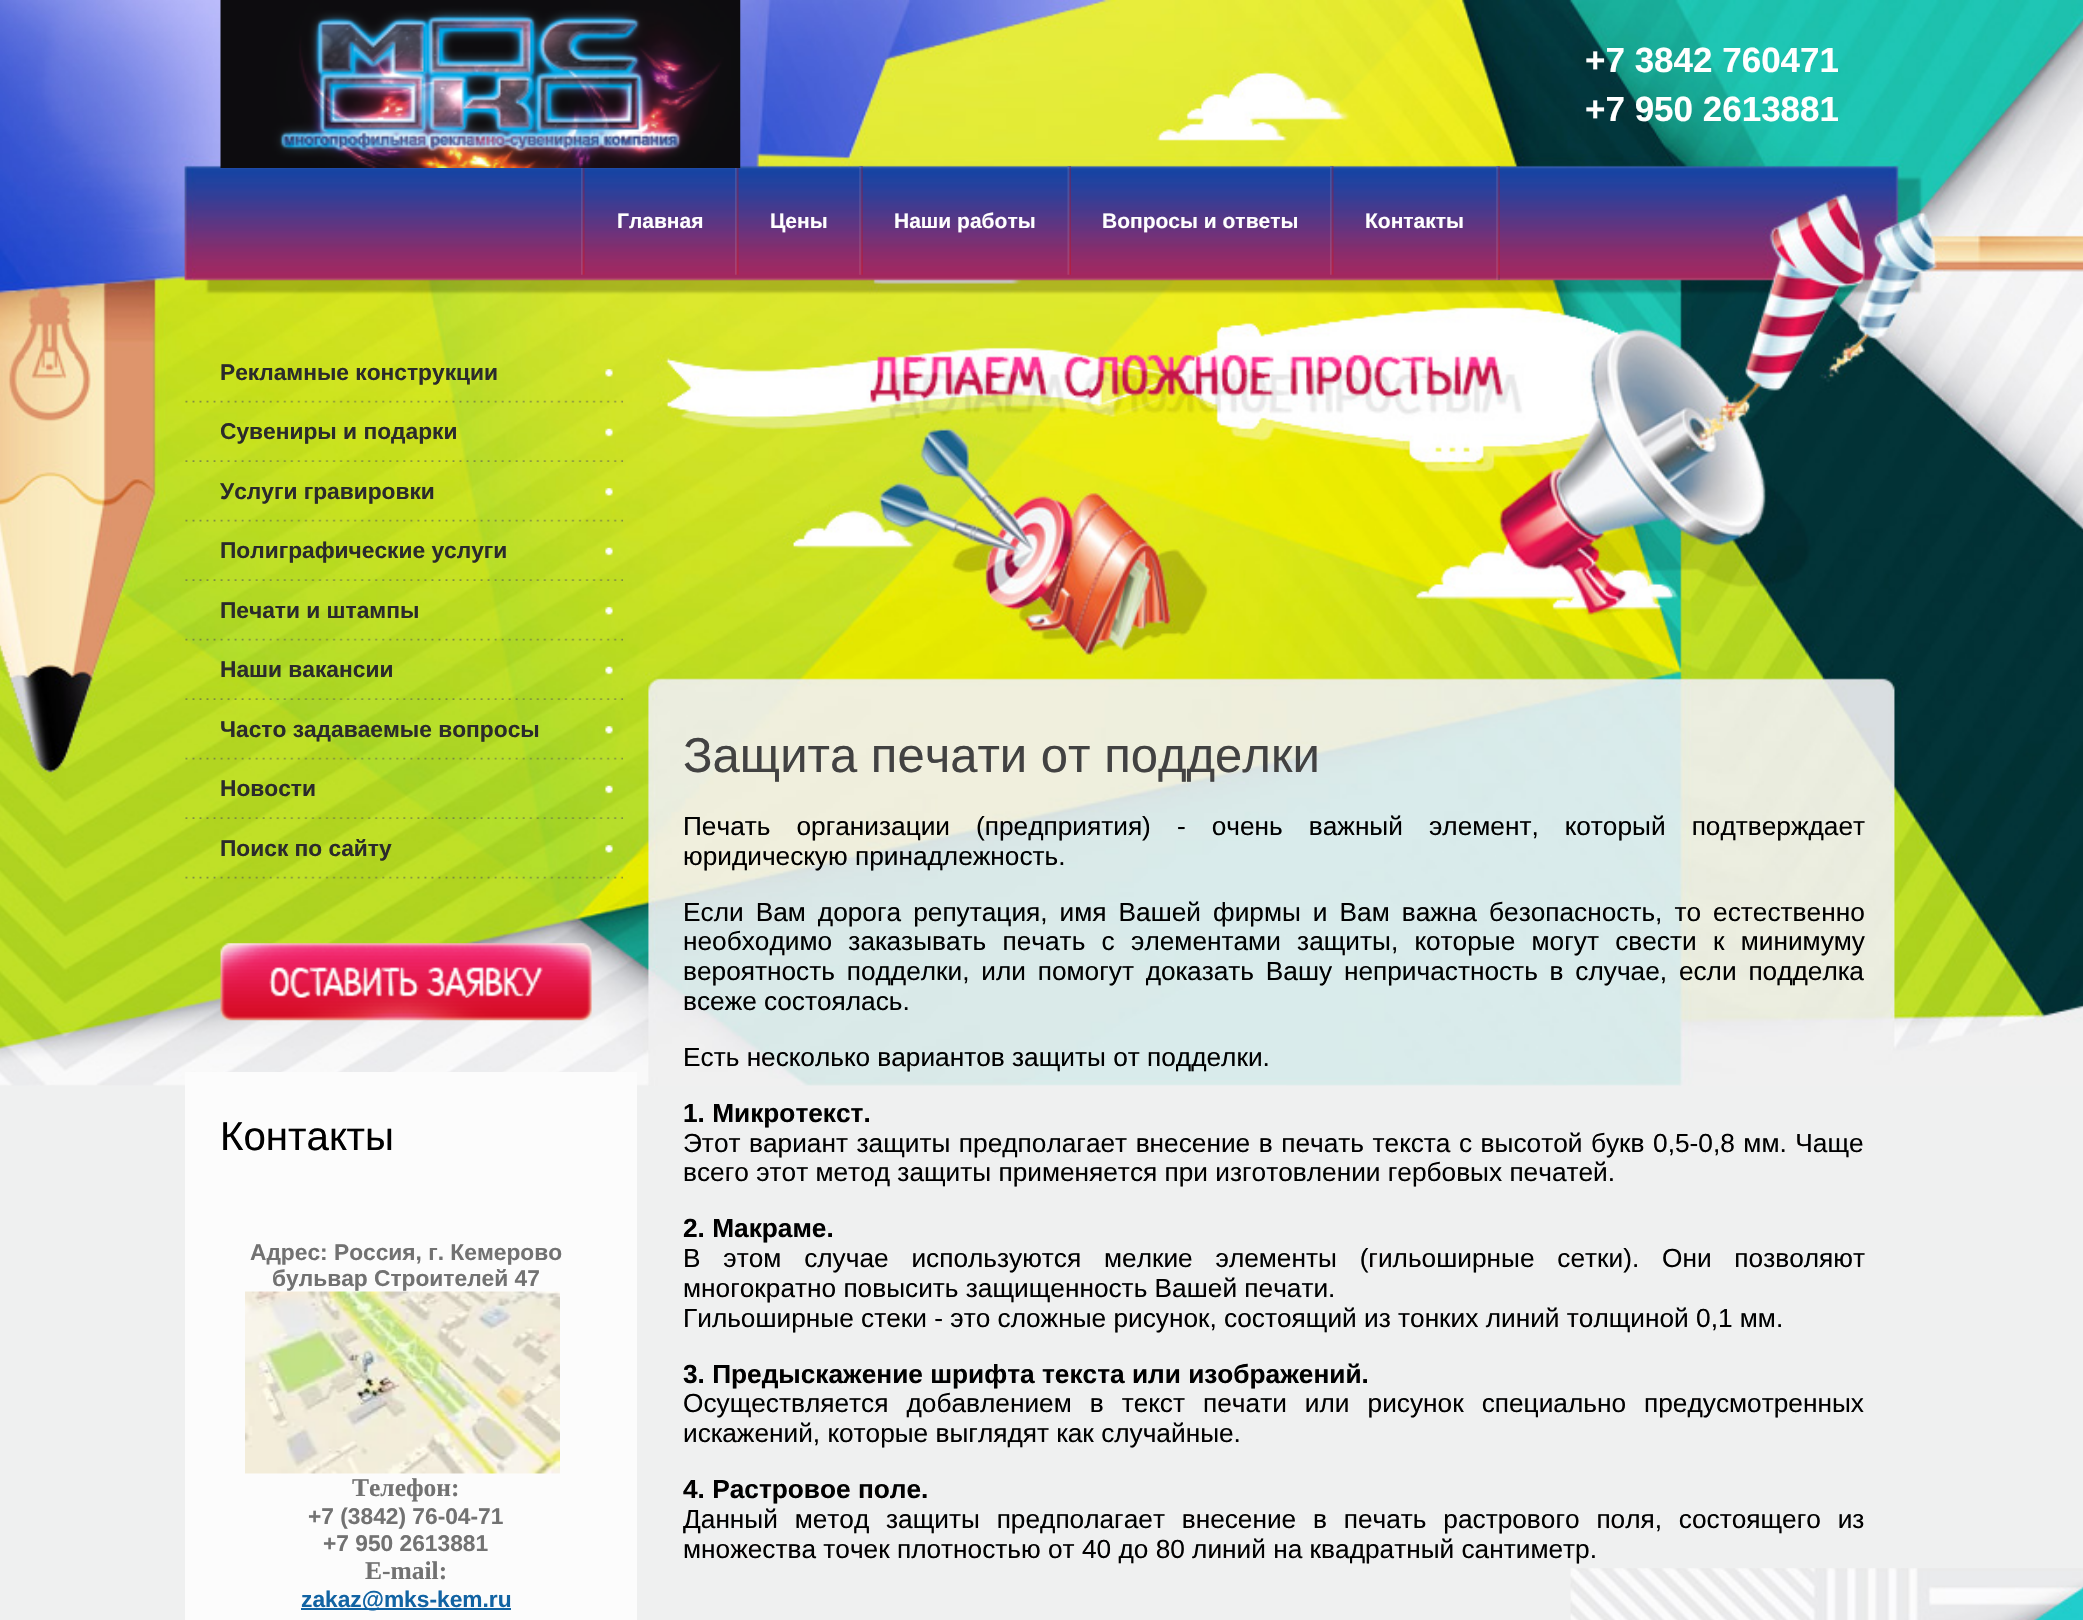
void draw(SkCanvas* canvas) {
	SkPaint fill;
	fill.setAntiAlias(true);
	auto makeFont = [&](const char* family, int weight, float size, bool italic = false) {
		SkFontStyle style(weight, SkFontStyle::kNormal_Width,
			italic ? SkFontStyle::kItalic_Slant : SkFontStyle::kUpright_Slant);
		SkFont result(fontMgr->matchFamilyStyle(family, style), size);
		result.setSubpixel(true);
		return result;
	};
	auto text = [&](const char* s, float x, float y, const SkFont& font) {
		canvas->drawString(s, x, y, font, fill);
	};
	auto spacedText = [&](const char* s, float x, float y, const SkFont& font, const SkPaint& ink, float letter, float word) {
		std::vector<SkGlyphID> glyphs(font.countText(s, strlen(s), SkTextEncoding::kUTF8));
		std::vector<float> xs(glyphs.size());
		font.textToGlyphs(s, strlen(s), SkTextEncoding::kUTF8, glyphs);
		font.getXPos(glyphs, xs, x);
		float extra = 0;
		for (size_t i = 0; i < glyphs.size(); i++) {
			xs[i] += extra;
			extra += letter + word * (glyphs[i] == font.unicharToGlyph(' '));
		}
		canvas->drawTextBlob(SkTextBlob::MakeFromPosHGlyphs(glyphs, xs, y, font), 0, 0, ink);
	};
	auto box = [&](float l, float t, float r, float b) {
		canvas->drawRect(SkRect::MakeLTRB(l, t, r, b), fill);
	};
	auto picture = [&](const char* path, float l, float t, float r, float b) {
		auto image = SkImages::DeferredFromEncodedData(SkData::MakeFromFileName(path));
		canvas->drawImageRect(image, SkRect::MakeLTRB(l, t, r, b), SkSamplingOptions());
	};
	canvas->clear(0xFFEFF0F0);
	picture("image0.png", 1570, 1568, 2083, 1620);
	picture("image1.png", 0, 0, 2083, 1086);
	picture("image2.png", 220, 0, 741, 168);
	picture("image3.png", 581, 168, 585, 275);
	picture("image3.png", 735, 168, 739, 275);
	picture("image4.png", 859, 166, 863, 275);
	picture("image5.png", 1067, 166, 1071, 275);
	picture("image6.png", 1330, 166, 1334, 275);
	picture("image7.png", 1496, 166, 1500, 280);
	picture("image8.png", 185, 400, 623, 403);
	picture("image9.png", 605, 369, 613, 377);
	picture("image10.png", 185, 460, 623, 462);
	picture("image11.png", 605, 428, 613, 437);
	picture("image12.png", 185, 519, 623, 522);
	picture("image13.png", 605, 488, 613, 496);
	picture("image14.png", 185, 579, 623, 581);
	picture("image15.png", 605, 547, 613, 556);
	picture("image16.png", 185, 638, 623, 641);
	picture("image17.png", 605, 607, 613, 615);
	picture("image18.png", 185, 698, 623, 700);
	picture("image19.png", 605, 666, 613, 675);
	picture("image20.png", 185, 757, 623, 760);
	picture("image21.png", 605, 726, 613, 734);
	picture("image22.png", 185, 817, 623, 819);
	picture("image23.png", 605, 785, 613, 794);
	picture("image24.png", 185, 876, 623, 879);
	picture("image25.png", 605, 845, 613, 853);
	picture("image26.png", 220, 943, 592, 1021);
	fill.setColor(0xFFFCFCFC);
	box(185, 1072, 637, 1620);
	picture("image27.png", 245, 1291, 560, 1474);
	fill.setColor(0xFF1163A3);
	box(301, 1608, 511, 1610);
	auto font1 = makeFont("Liberation Sans", 700, 35);
	fill.setColor(0xFFFFFFFF);
	text("+7 3842 760471", 1585, 72, font1);
	text("+7 950 2613881", 1585, 121, font1);
	auto font2 = makeFont("Liberation Sans", 700, 21);
	text("Главная", 617, 228, font2);
	text("Цены", 770, 228, font2);
	text("Наши работы", 894, 228, font2);
	text("Вопросы и ответы", 1102, 228, font2);
	text("Контакты", 1365, 228, font2);
	auto font3 = makeFont("Liberation Sans", 700, 22.75f);
	fill.setColor(0xFF2B2B2B);
	text("Рекламные конструкции", 220, 380, font3);
	text("Сувениры и подарки", 220, 439, font3);
	text("Услуги гравировки", 220, 499, font3);
	text("Полиграфические услуги", 220, 558, font3);
	text("Печати и штампы", 220, 618, font3);
	text("Наши вакансии", 220, 677, font3);
	text("Часто задаваемые вопросы", 220, 737, font3);
	text("Новости", 220, 796, font3);
	text("Поиск по сайту", 220, 856, font3);
	auto font4 = makeFont("Liberation Sans", 400, 40.25f);
	fill.setColor(0xFF000000);
	text("Контакты", 220, 1150, font4);
	fill.setColor(0xFF727272);
	text("Адрес: Россия, г. Кемерово", 250, 1260, font3);
	text("бульвар Cтроителей 47", 272, 1286, font3);
	auto font5 = makeFont("Liberation Serif", 700, 25.5f);
	text("Телефон:", 352, 1496, font5);
	text("+7 (3842) 76-04-71", 308, 1524, font3);
	text("+7 950 2613881", 323, 1551, font3);
	text("E-mail:", 365, 1579, font5);
	fill.setColor(0xFF1163A3);
	text("zakaz@mks-kem.ru", 301, 1607, font3);
	auto font6 = makeFont("Liberation Sans", 400, 49);
	fill.setColor(0xFF424242);
	text("Защита печати от подделки", 683, 772, font6);
	auto font7 = makeFont("Liberation Sans", 400, 26.25f);
	fill.setColor(0xFF000000);
	spacedText("Печать организации (предприятия) - очень важный элемент, который подтверждает", 683, 835, font7, fill, 0, 18.75f);
	text("юридическую принадлежность.", 683, 865, font7);
	spacedText("Если Вам дорога репутация, имя Вашей фирмы и Вам важна безопасность, то естественно", 683, 921, font7, fill, 0, 4.75f);
	spacedText("необходимо заказывать печать с элементами защиты, которые могут свести к минимуму", 683, 950, font7, fill, 0, 9);
	spacedText("вероятность подделки, или помогут доказать Вашу непричастность в случае, если подделка", 683, 980, font7, fill, 0, 4.5f);
	text("всеже состоялась.", 683, 1010, font7);
	text("Есть несколько вариантов защиты от подделки.", 683, 1066, font7);
	auto font8 = makeFont("Liberation Sans", 700, 26.25f);
	text("1. Микротекст.", 683, 1122, font8);
	spacedText("Этот вариант защиты предполагает внесение в печать текста с высотой букв 0,5-0,8 мм. Чаще", 683, 1152, font7, fill, 0, 1.25f);
	text("всего этот метод защиты применяется при изготовлении гербовых печатей.", 683, 1181, font7);
	text("2. Макраме.", 683, 1237, font8);
	spacedText("В этом случае используются мелкие элементы (гильоширные сетки). Они позволяют", 683, 1267, font7, fill, 0, 15.5f);
	text("многократно повысить защищенность Вашей печати.", 683, 1297, font7);
	text("Гильоширные стеки - это сложные рисунок, состоящий из тонких линий толщиной 0,1 мм.", 683, 1327, font7);
	text("3. Предыскажение шрифта текста или изображений.", 683, 1383, font8);
	spacedText("Осуществляется добавлением в текст печати или рисунок специально предусмотренных", 683, 1412, font7, fill, 0, 10.75f);
	text("искажений, которые выглядят как случайные.", 683, 1442, font7);
	text("4. Растровое поле.", 683, 1498, font8);
	spacedText("Данный метод защиты предполагает внесение в печать растрового поля, состоящего из", 683, 1528, font7, fill, 0, 9.5f);
	text("множества точек плотностью от 40 до 80 линий на квадратный сантиметр.", 683, 1558, font7);
}
